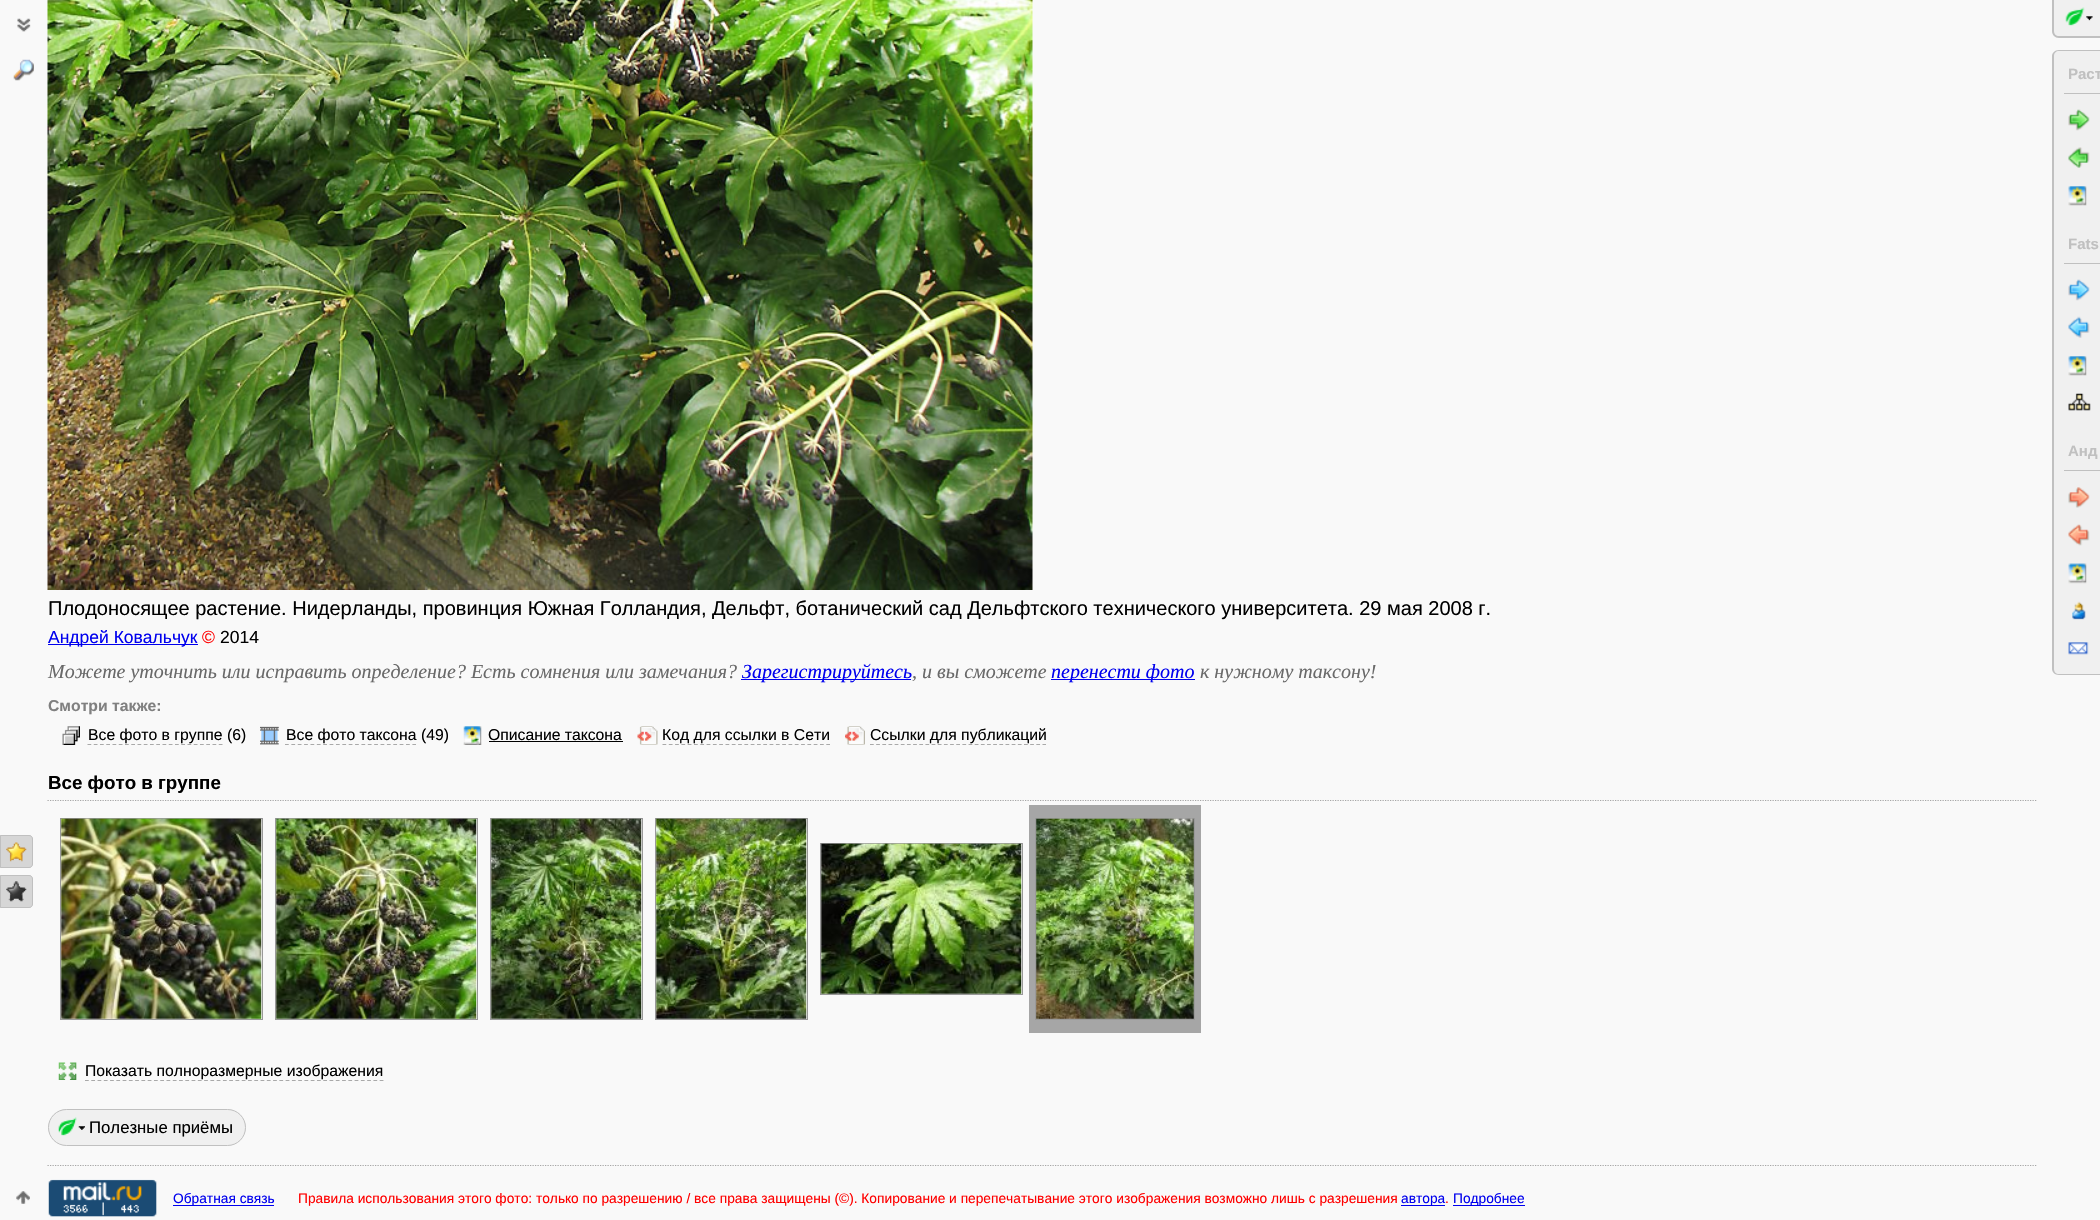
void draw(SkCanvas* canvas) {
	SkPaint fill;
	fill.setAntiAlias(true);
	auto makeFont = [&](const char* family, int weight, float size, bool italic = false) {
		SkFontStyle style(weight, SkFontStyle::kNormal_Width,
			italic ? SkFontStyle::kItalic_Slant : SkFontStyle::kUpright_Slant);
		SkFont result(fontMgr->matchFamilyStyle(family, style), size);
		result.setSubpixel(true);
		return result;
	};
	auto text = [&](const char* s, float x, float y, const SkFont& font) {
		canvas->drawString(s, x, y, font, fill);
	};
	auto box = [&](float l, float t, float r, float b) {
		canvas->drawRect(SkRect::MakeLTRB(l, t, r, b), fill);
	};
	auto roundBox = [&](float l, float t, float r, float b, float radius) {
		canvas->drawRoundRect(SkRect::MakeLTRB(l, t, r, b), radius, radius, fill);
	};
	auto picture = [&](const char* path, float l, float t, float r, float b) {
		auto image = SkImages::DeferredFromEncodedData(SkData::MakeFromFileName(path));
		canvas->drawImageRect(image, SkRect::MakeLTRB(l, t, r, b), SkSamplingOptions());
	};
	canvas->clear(0xFFF9F9F9);
	picture("image0.png", 17, 18, 31, 32);
	picture("image1.png", 13, 59, 34, 81);
	fill.setColor(0xFFD6D6D6);
	canvas->drawPath(SkPathBuilder().moveTo(0, 835).lineTo(29, 835).cubicTo(31, 835, 33, 837, 33, 839).lineTo(33, 864).cubicTo(33, 866, 31, 868, 29, 868).lineTo(0, 868).close().detach(), fill);
	picture("image2.png", 6, 842, 27, 862);
	fill.setStyle(SkPaint::kStroke_Style);
	fill.setStrokeWidth(1);
	fill.setColor(0xFFC0C0C0);
	canvas->drawPath(SkPathBuilder().moveTo(0.5f, 835.5f).lineTo(29, 835.5f).cubicTo(31, 835.5f, 32.5f, 837, 32.5f, 839).lineTo(32.5f, 864).cubicTo(32.5f, 866, 31, 867.5f, 29, 867.5f).lineTo(0.5f, 867.5f).close().detach(), fill);
	fill.setStyle(SkPaint::kFill_Style);
	fill.setColor(0xFFD6D6D6);
	canvas->drawPath(SkPathBuilder().moveTo(0, 875).lineTo(29, 875).cubicTo(31, 875, 33, 877, 33, 879).lineTo(33, 904).cubicTo(33, 906, 31, 908, 29, 908).lineTo(0, 908).close().detach(), fill);
	picture("image3.png", 6, 881, 27, 902);
	fill.setStyle(SkPaint::kStroke_Style);
	fill.setColor(0xFFC0C0C0);
	canvas->drawPath(SkPathBuilder().moveTo(0.5f, 875.5f).lineTo(29, 875.5f).cubicTo(31, 875.5f, 32.5f, 877, 32.5f, 879).lineTo(32.5f, 904).cubicTo(32.5f, 906, 31, 907.5f, 29, 907.5f).lineTo(0.5f, 907.5f).close().detach(), fill);
	fill.setStyle(SkPaint::kFill_Style);
	fill.setColor(0xFFF0F0F0);
	canvas->drawPath(SkPathBuilder().moveTo(2053, 0).lineTo(2100, 0).lineTo(2100, 38).lineTo(2059, 38).cubicTo(2055.5f, 38, 2053, 35.5f, 2053, 32).close().detach(), fill);
	picture("image4.png", 2065, 7, 2085, 26);
	fill.setColor(0xFFC0C0C0);
	canvas->drawPath(SkPathBuilder(SkPathFillType::kEvenOdd).moveTo(2052, 0).lineTo(2100, 0).lineTo(2100, 38).lineTo(2059, 38).cubicTo(2055, 38, 2052, 35, 2052, 31).close().moveTo(2054, 0).lineTo(2100, 0).lineTo(2100, 36).lineTo(2059, 36).cubicTo(2056, 36, 2054, 34, 2054, 31).close().detach(), fill);
	picture("image5.png", 2086, 16, 2093, 21);
	fill.setColor(0xFFF0F0F0);
	canvas->drawPath(SkPathBuilder().moveTo(2059, 50).lineTo(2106, 50).lineTo(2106, 675).lineTo(2059, 675).cubicTo(2055.5f, 675, 2053, 672.5f, 2053, 669).lineTo(2053, 56).cubicTo(2053, 52.5f, 2055.5f, 50, 2059, 50).close().detach(), fill);
	fill.setColor(0xFFC0C0C0);
	canvas->drawPath(SkPathBuilder(SkPathFillType::kEvenOdd).moveTo(2059, 50).lineTo(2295, 50).lineTo(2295, 675).lineTo(2059, 675).cubicTo(2055, 675, 2052, 672, 2052, 669).lineTo(2052, 56).cubicTo(2052, 53, 2055, 50, 2059, 50).close().moveTo(2059, 51).lineTo(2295, 51).lineTo(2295, 674).lineTo(2059, 674).cubicTo(2056, 674, 2054, 672, 2054, 669).lineTo(2054, 56).cubicTo(2054, 53, 2056, 51, 2059, 51).close().detach(), fill);
	box(2064, 93, 2100, 94);
	picture("image6.png", 2068, 109, 2090, 131);
	picture("image7.png", 2068, 147, 2090, 168);
	picture("image8.png", 2068, 186, 2087, 206);
	box(2064, 263, 2100, 264);
	picture("image9.png", 2068, 279, 2090, 301);
	picture("image10.png", 2068, 316, 2090, 338);
	picture("image8.png", 2068, 356, 2087, 376);
	picture("image11.png", 2068, 393, 2091, 411);
	box(2064, 470, 2100, 471);
	picture("image12.png", 2068, 487, 2090, 508);
	picture("image13.png", 2068, 524, 2090, 546);
	picture("image14.png", 2068, 563, 2087, 584);
	picture("image15.png", 2072, 601, 2086, 620);
	picture("image16.png", 2068, 642, 2089, 655);
	picture("image17.png", 47, 0, 1033, 590);
	fill.setColor(0xFF0000EE);
	box(48, 644, 198, 645);
	box(741, 679, 911, 680);
	box(1051, 679, 1195, 680);
	picture("image18.png", 62, 726, 80, 745);
	fill.setStyle(SkPaint::kStroke_Style);
	fill.setStrokeWidth(1.2f);
	fill.setColor(0xFFA9A9A9);
	fill.setPathEffect(SkDashPathEffect::Make({{3.75f, 2.5f}}, 0));
	canvas->drawPath(SkPathBuilder().moveTo(87.5f, 744.5f).lineTo(222.5f, 744.5f).detach(), fill);
	fill.setPathEffect(nullptr);
	picture("image19.png", 260, 726, 279, 745);
	fill.setPathEffect(SkDashPathEffect::Make({{3.75f, 2.62f}}, 0));
	canvas->drawPath(SkPathBuilder().moveTo(285, 744.5f).lineTo(416, 744.5f).detach(), fill);
	fill.setPathEffect(nullptr);
	picture("image20.png", 463, 726, 482, 745);
	fill.setStyle(SkPaint::kFill_Style);
	fill.setColor(0xFF000000);
	box(489, 741, 623, 742);
	picture("image21.png", 637, 726, 658, 745);
	fill.setStyle(SkPaint::kStroke_Style);
	fill.setColor(0xFFA9A9A9);
	fill.setPathEffect(SkDashPathEffect::Make({{3.75f, 2.55f}}, 0));
	canvas->drawPath(SkPathBuilder().moveTo(662.5f, 744.5f).lineTo(830, 744.5f).detach(), fill);
	fill.setPathEffect(nullptr);
	picture("image22.png", 845, 726, 865, 745);
	fill.setPathEffect(SkDashPathEffect::Make({{3.75f, 2.41f}}, 0));
	canvas->drawPath(SkPathBuilder().moveTo(870, 744.5f).lineTo(1046, 744.5f).detach(), fill);
	fill.setPathEffect(nullptr);
	fill.setColor(0xFFA6A6A6);
	fill.setPathEffect(SkDashPathEffect::Make({{1.25f, 1.25f}}, 0));
	canvas->drawPath(SkPathBuilder().moveTo(47.5f, 800.5f).lineTo(2037.5f, 800.5f).detach(), fill);
	fill.setPathEffect(nullptr);
	fill.setStrokeWidth(1);
	fill.setColor(0xFF999999);
	canvas->drawRect(SkRect::MakeLTRB(60.5f, 818.5f, 262.5f, 1019.5f), fill);
	picture("image23.png", 61, 818, 262, 1019);
	canvas->drawRect(SkRect::MakeLTRB(275.5f, 818.5f, 477.5f, 1019.5f), fill);
	picture("image24.png", 276, 818, 477, 1019);
	canvas->drawRect(SkRect::MakeLTRB(490.5f, 818.5f, 642.5f, 1019.5f), fill);
	picture("image25.png", 491, 818, 642, 1019);
	canvas->drawRect(SkRect::MakeLTRB(655.5f, 818.5f, 807.5f, 1019.5f), fill);
	picture("image26.png", 656, 818, 807, 1019);
	canvas->drawRect(SkRect::MakeLTRB(820.5f, 843.5f, 1022.5f, 994.5f), fill);
	picture("image27.png", 821, 843, 1022, 994);
	fill.setStyle(SkPaint::kFill_Style);
	fill.setColor(0xFFA6A6A6);
	box(1029, 805, 1201, 1033);
	fill.setStyle(SkPaint::kStroke_Style);
	fill.setColor(0xFF999999);
	canvas->drawRect(SkRect::MakeLTRB(1035.5f, 818.5f, 1194.5f, 1019.5f), fill);
	picture("image28.png", 1036, 818, 1194, 1019);
	picture("image29.png", 58, 1062, 77, 1080);
	fill.setStrokeWidth(1.2f);
	fill.setColor(0xFFA9A9A9);
	fill.setPathEffect(SkDashPathEffect::Make({{3.75f, 2.52f}}, 0));
	canvas->drawPath(SkPathBuilder().moveTo(85, 1080.5f).lineTo(384, 1080.5f).detach(), fill);
	fill.setPathEffect(nullptr);
	fill.setStyle(SkPaint::kFill_Style);
	fill.setColor(0xFFF0F0F0);
	roundBox(48, 1109, 246, 1146, 18.5f);
	picture("image30.png", 78, 1126, 85, 1130);
	fill.setStyle(SkPaint::kStroke_Style);
	fill.setStrokeWidth(1);
	fill.setColor(0xFFC0C0C0);
	canvas->drawRoundRect(SkRect::MakeLTRB(48.5f, 1109.5f, 245.5f, 1145.5f), 18, 18, fill);
	picture("image31.png", 58, 1117, 77, 1136);
	fill.setStrokeWidth(1.2f);
	fill.setColor(0xFFA6A6A6);
	fill.setPathEffect(SkDashPathEffect::Make({{1.25f, 1.25f}}, 0));
	canvas->drawPath(SkPathBuilder().moveTo(47.5f, 1165.5f).lineTo(2037.5f, 1165.5f).detach(), fill);
	fill.setPathEffect(nullptr);
	picture("image32.png", 16, 1191, 30, 1204);
	picture("image33.png", 48, 1179, 157, 1217);
	fill.setStyle(SkPaint::kFill_Style);
	fill.setColor(0xFF0000EE);
	box(173, 1205, 274, 1206);
	box(1401, 1205, 1445, 1206);
	box(1453, 1205, 1525, 1206);
	auto font1 = makeFont("Liberation Sans", 700, 15);
	fill.setColor(0xFFC0C0C0);
	text("Раст", 2068, 79, font1);
	text("Fats", 2068, 249, font1);
	text("Анд", 2068, 456, font1);
	auto font2 = makeFont("Liberation Sans", 400, 20);
	fill.setColor(0xFF000000);
	text("Плодоносящее растение. Нидерланды, провинция Южная Голландия, Дельфт, ботанический сад Дельфтского технического университета. 29 мая 2008 г.", 48, 615, font2);
	auto font3 = makeFont("Liberation Sans", 400, 17.5f);
	fill.setColor(0xFF0000EE);
	text("Андрей Ковальчук", 48, 643, font3);
	fill.setColor(0xFFFF0000);
	text("©", 202, 643, font3);
	fill.setColor(0xFF000000);
	text("2014", 220, 643, font3);
	auto font4 = makeFont("Liberation Serif", 400, 20, true);
	fill.setColor(0xFF696969);
	text("Можете уточнить или исправить определение? Есть сомнения или замечания?", 48, 678, font4);
	fill.setColor(0xFF0000EE);
	text("Зарегистрируйтесь", 742, 678, font4);
	fill.setColor(0xFF696969);
	text(", и вы сможете", 912, 678, font4);
	fill.setColor(0xFF0000EE);
	text("перенести фото", 1051, 678, font4);
	fill.setColor(0xFF696969);
	text("к нужному таксону!", 1200, 678, font4);
	auto font5 = makeFont("Liberation Sans", 700, 15.75f);
	fill.setColor(0xFF808080);
	text("Смотри также:", 48, 711, font5);
	auto font6 = makeFont("Liberation Sans", 400, 15.75f);
	fill.setColor(0xFF000000);
	text("Все фото в группе (6)", 88, 740, font6);
	text("Все фото таксона (49)", 286, 740, font6);
	text("Описание таксона", 488, 740, font6);
	text("Код для ссылки в Сети", 662, 740, font6);
	text("Ссылки для публикаций", 870, 740, font6);
	auto font7 = makeFont("Liberation Sans", 700, 18.75f);
	text("Все фото в группе", 48, 789, font7);
	text("Показать полноразмерные изображения", 85, 1076, font6);
	auto font8 = makeFont("Liberation Sans", 400, 16.75f);
	text("Полезные приёмы", 89, 1133, font8);
	auto font9 = makeFont("Liberation Sans", 400, 13.75f);
	fill.setColor(0xFF0000EE);
	text("Обратная связь", 173, 1203, font9);
	fill.setColor(0xFFFF0000);
	text("Правила использования этого фото: только по разрешению / все права защищены (©). Копирование и перепечатывание этого изображения возможно лишь с разрешения", 298, 1203, font9);
	fill.setColor(0xFF0000EE);
	text("автора", 1401, 1203, font9);
	fill.setColor(0xFFFF0000);
	text(".", 1445, 1203, font9);
	fill.setColor(0xFF0000EE);
	text("Подробнее", 1453, 1203, font9);
}
